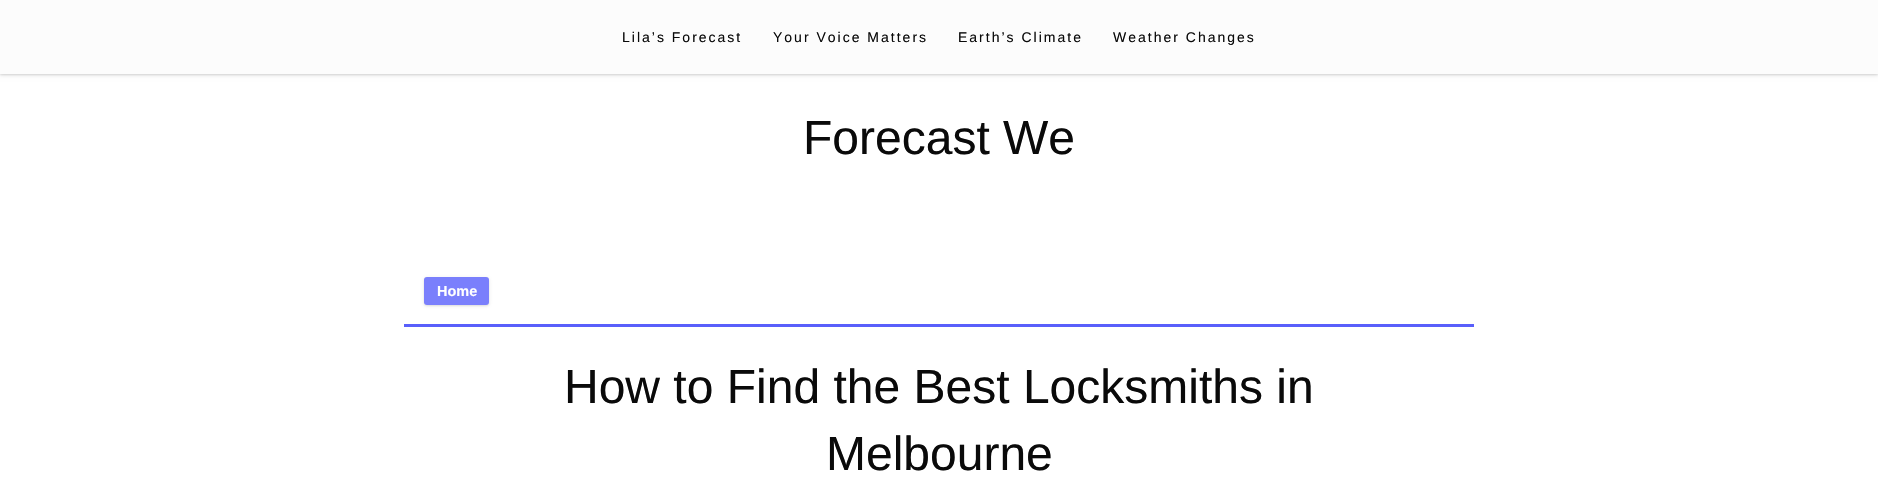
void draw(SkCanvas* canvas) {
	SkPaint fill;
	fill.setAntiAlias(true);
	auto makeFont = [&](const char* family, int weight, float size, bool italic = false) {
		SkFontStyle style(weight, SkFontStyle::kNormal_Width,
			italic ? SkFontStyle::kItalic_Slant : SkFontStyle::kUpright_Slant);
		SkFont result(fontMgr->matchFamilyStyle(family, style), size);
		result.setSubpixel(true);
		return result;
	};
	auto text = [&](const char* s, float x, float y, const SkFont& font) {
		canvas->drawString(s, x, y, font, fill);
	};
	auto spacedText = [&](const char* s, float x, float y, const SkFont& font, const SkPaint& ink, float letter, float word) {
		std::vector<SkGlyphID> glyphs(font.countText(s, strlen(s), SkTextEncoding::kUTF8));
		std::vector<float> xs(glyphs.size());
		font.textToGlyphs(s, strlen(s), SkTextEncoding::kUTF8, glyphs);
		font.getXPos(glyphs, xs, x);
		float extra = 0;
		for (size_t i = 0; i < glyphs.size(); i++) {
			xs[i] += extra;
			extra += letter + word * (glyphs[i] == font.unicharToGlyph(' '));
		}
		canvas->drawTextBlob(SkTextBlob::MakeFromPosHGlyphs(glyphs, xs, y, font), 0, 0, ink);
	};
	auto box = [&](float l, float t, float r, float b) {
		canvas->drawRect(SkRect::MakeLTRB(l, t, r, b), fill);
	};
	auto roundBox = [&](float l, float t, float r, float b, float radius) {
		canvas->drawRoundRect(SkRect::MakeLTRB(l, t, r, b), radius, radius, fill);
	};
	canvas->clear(0xFFFFFFFF);
	fill.setColor(0x14000000);
	fill.setMaskFilter(SkMaskFilter::MakeBlur(kNormal_SkBlurStyle, 2.5f));
	canvas->drawRect(SkRect::MakeLTRB(0, 1, 1878, 75), fill);
	fill.setMaskFilter(nullptr);
	fill.setColor(0x21000000);
	fill.setMaskFilter(SkMaskFilter::MakeBlur(kNormal_SkBlurStyle, 1));
	canvas->drawRect(SkRect::MakeLTRB(0, 1, 1878, 75), fill);
	fill.setMaskFilter(nullptr);
	fill.setColor(0xFFFCFCFC);
	box(0, 0, 1878, 74);
	fill.setColor(0x14333333);
	fill.setMaskFilter(SkMaskFilter::MakeBlur(kNormal_SkBlurStyle, 2.5f));
	canvas->drawRoundRect(SkRect::MakeLTRB(424, 278, 489, 306), 3, 3, fill);
	fill.setMaskFilter(nullptr);
	fill.setColor(0x21333333);
	fill.setMaskFilter(SkMaskFilter::MakeBlur(kNormal_SkBlurStyle, 1));
	canvas->drawRoundRect(SkRect::MakeLTRB(424, 278, 489, 306), 3, 3, fill);
	fill.setMaskFilter(nullptr);
	fill.setColor(0xFF7A7FFC);
	roundBox(424, 277, 489, 305, 3);
	fill.setColor(0xFF595FFB);
	box(404, 324, 1474, 327);
	auto font1 = makeFont("Liberation Sans", 400, 14);
	fill.setColor(0xFF0A0A0A);
	spacedText("Lila’s Forecast", 622, 42, font1, fill, 2, 0);
	spacedText("Your Voice Matters", 773, 42, font1, fill, 2, 0);
	spacedText("Earth’s Climate", 958, 42, font1, fill, 2, 0);
	spacedText("Weather Changes", 1113, 42, font1, fill, 2, 0);
	auto font2 = makeFont("Liberation Sans", 400, 48);
	text("Forecast We", 803, 154, font2);
	auto font3 = makeFont("Liberation Sans", 700, 14.5f);
	fill.setColor(0xFFFFFFFF);
	text("Home", 437, 296, font3);
	fill.setColor(0xFF0A0A0A);
	text("How to Find the Best Locksmiths in", 564, 403, font2);
	text("Melbourne", 826, 470, font2);
}
